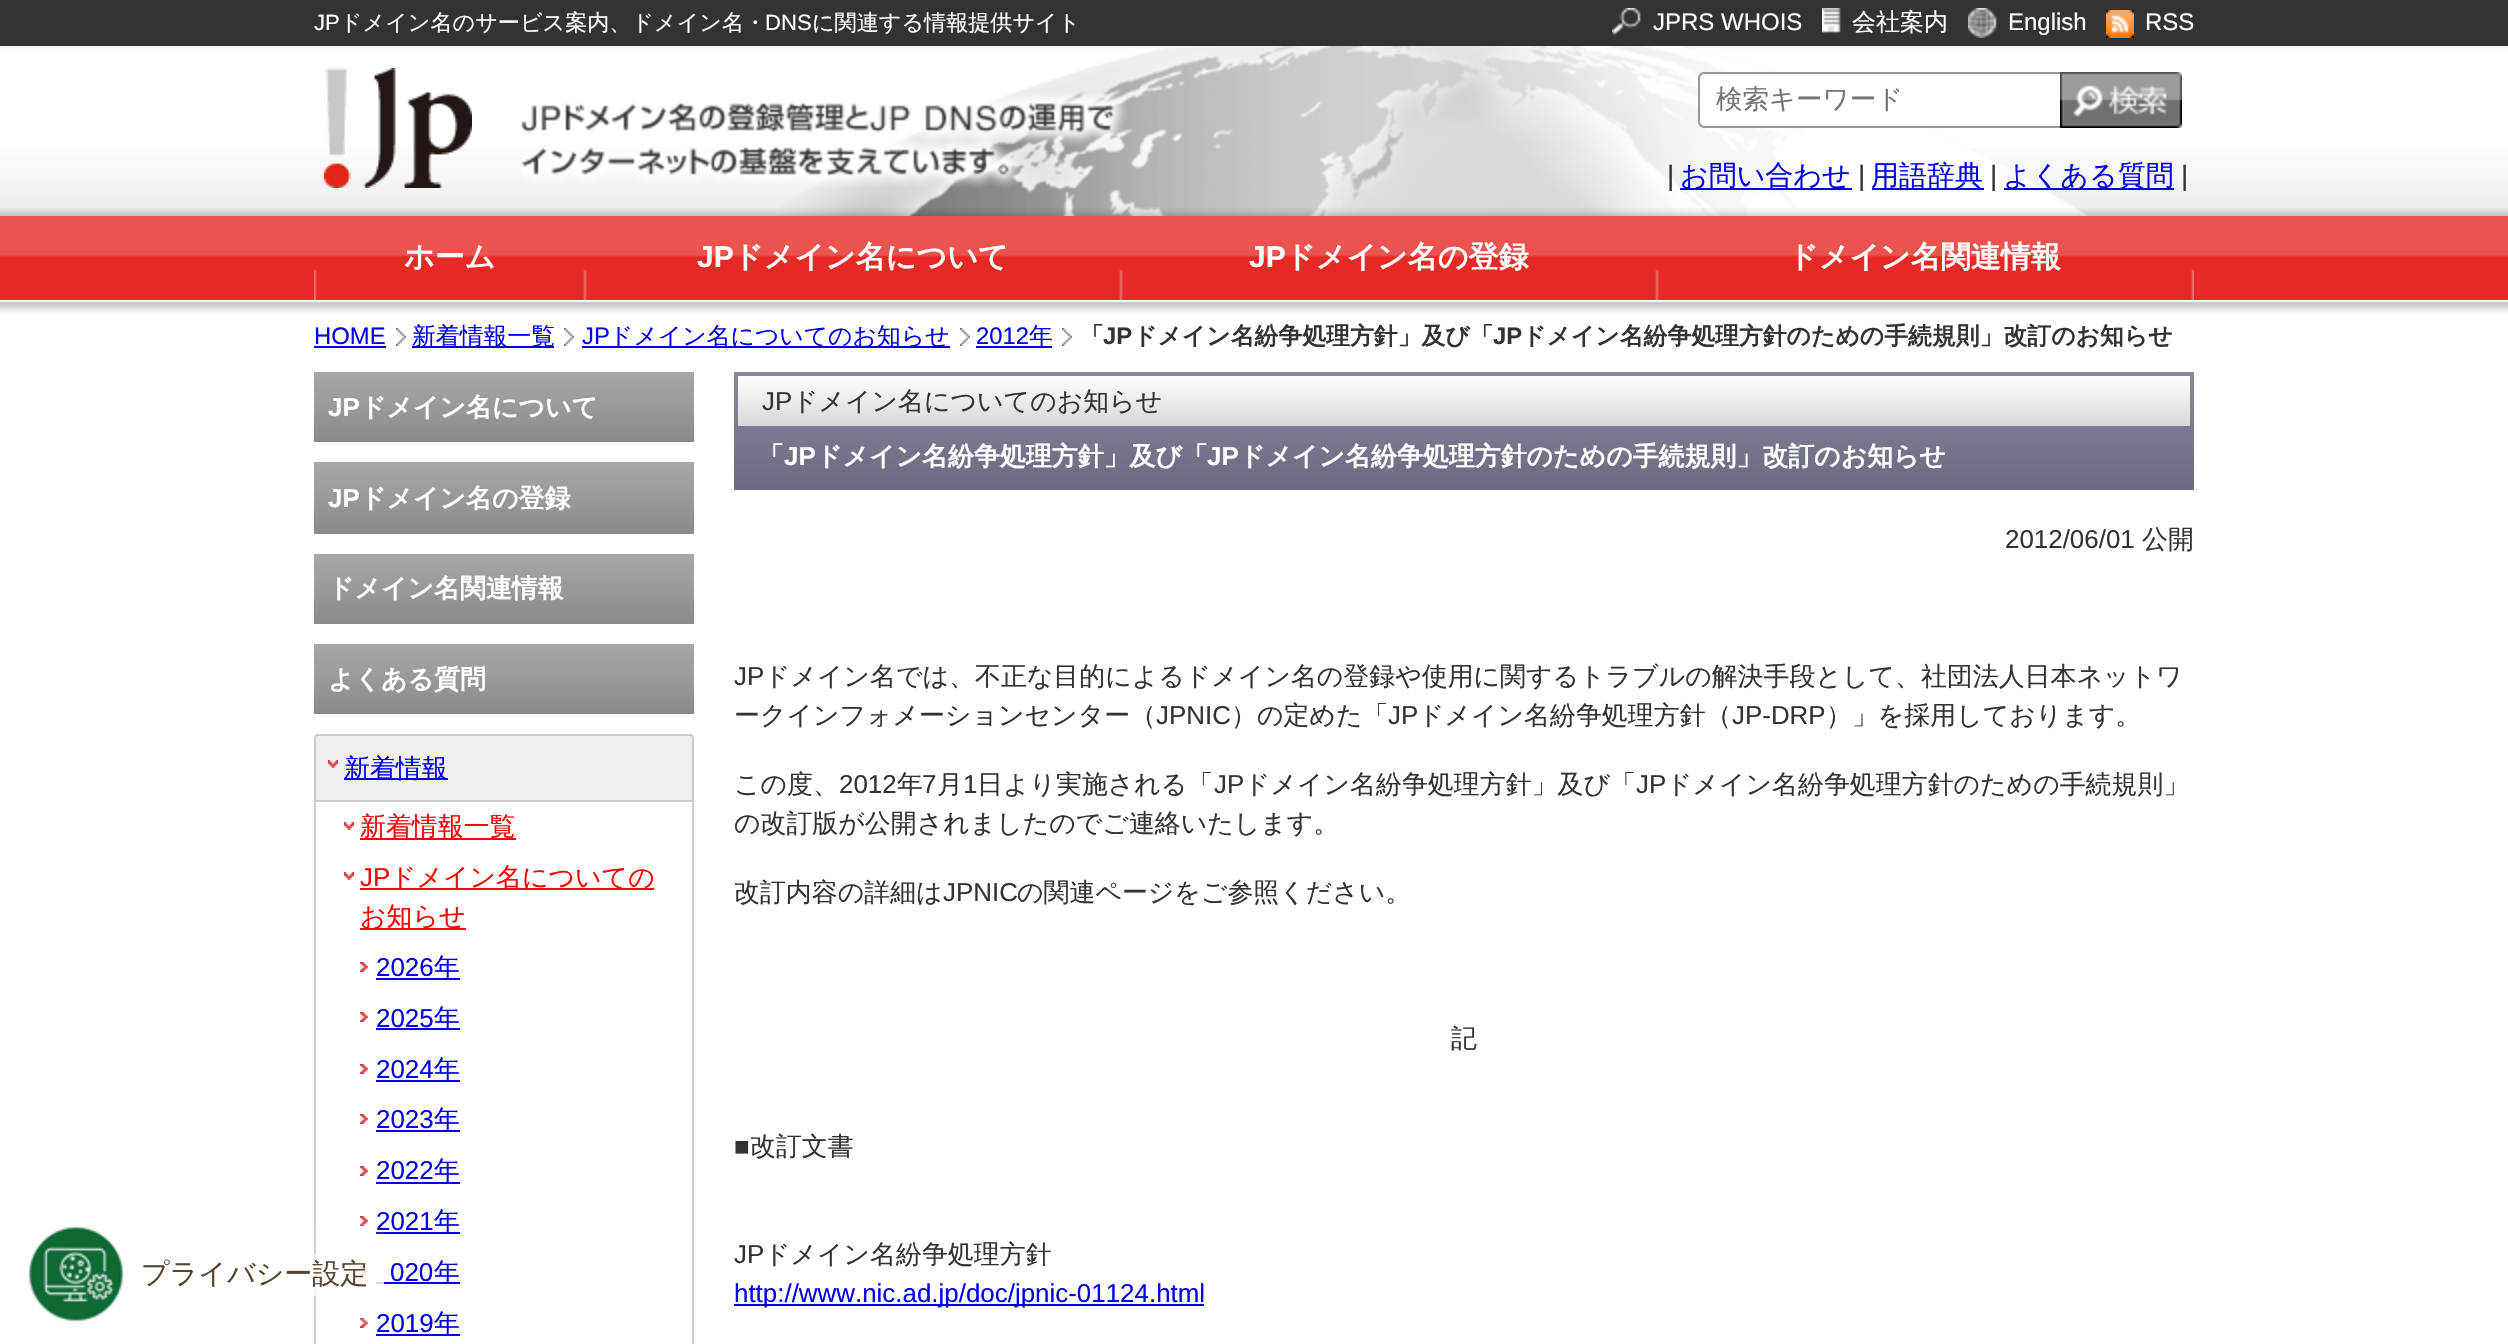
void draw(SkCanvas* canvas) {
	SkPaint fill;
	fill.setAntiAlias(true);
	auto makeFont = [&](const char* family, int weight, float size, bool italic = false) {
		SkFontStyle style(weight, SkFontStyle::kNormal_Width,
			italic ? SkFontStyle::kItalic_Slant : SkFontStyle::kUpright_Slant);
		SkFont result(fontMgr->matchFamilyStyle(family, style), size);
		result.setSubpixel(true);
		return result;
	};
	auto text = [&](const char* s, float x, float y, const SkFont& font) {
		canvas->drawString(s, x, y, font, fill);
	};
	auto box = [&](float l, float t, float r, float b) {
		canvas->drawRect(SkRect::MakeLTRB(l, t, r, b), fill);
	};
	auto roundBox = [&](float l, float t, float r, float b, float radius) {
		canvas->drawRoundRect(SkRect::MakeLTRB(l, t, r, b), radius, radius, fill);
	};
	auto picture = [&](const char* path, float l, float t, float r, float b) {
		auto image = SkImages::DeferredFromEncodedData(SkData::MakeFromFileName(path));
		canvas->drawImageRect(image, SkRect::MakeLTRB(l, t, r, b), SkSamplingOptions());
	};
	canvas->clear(0xFFFFFFFF);
	fill.setColor(0xFF333333);
	box(0, 0, 2508, 46);
	picture("image0.png", 1612, 8, 1641, 35);
	picture("image1.png", 1822, 8, 1841, 33);
	picture("image2.png", 1968, 8, 1997, 38);
	picture("image3.png", 2106, 10, 2134, 38);
	fill.setColor(0xFFE9E9E9);
	box(0, 209, 2508, 216);
	picture("image4.png", 0, 46, 2508, 209);
	picture("image5.png", 779, 46, 2087, 216);
	picture("image6.png", 324, 68, 472, 188);
	picture("image7.png", 521, 92, 1127, 188);
	fill.setColor(0xFFFFFFFF);
	canvas->drawPath(SkPathBuilder().moveTo(1704, 72).lineTo(2060, 72).lineTo(2060, 128).lineTo(1704, 128).cubicTo(1700.5f, 128, 1698, 125.5f, 1698, 122).lineTo(1698, 78).cubicTo(1698, 74.5f, 1700.5f, 72, 1704, 72).close().detach(), fill);
	fill.setColor(0xFF999999);
	canvas->drawPath(SkPathBuilder(SkPathFillType::kEvenOdd).moveTo(1704, 72).lineTo(2060, 72).lineTo(2060, 128).lineTo(1704, 128).cubicTo(1701, 128, 1698, 125, 1698, 122).lineTo(1698, 78).cubicTo(1698, 75, 1701, 72, 1704, 72).close().moveTo(1704, 74).lineTo(2060, 74).lineTo(2060, 126).lineTo(1704, 126).cubicTo(1702, 126, 1700, 124, 1700, 122).lineTo(1700, 78).cubicTo(1700, 76, 1702, 74, 1704, 74).close().detach(), fill);
	picture("image8.png", 2060, 72, 2182, 128);
	fill.setColor(0xFF0000EB);
	box(1680, 188, 1852, 190);
	box(1872, 188, 1984, 190);
	box(2004, 188, 2174, 190);
	picture("image9.png", 0, 208, 2508, 216);
	fill.setColor(0xFFE62924);
	box(0, 257, 2508, 300);
	picture("image10.png", 0, 216, 2508, 257);
	picture("image11.png", 314, 269, 2194, 300);
	picture("image12.png", 0, 301, 2508, 314);
	fill.setColor(0xFFF0F0F0);
	canvas->drawRoundRect(SkRect::MakeLTRB(315, 735, 693, 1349), 3, 3, fill);
	fill.setStyle(SkPaint::kStroke_Style);
	fill.setStrokeWidth(2);
	fill.setColor(0xFFCCCCCC);
	canvas->drawRoundRect(SkRect::MakeLTRB(315, 735, 693, 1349), 3, 3, fill);
	fill.setStyle(SkPaint::kFill_Style);
	fill.setColor(0xFFFFFFFF);
	box(316, 802, 692, 1344);
	picture("image17.png", 360, 1216, 368, 1226);
	fill.setColor(0xFF0000EB);
	box(376, 1232, 460, 1234);
	picture("image17.png", 360, 1266, 368, 1276);
	box(376, 1282, 460, 1284);
	picture("image17.png", 360, 1318, 368, 1328);
	fill.setColor(0x1AFFFFFF);
	roundBox(26, 1224, 384, 1324, 4);
	picture("image13.png", 27, 1225, 125, 1323);
	fill.setColor(0xCCFFFFFF);
	box(314, 1254, 384, 1296);
	fill.setColor(0xFF0000EB);
	box(314, 346, 386, 348);
	picture("image14.png", 396, 328, 406, 346);
	box(412, 346, 554, 348);
	picture("image14.png", 564, 328, 574, 346);
	box(582, 346, 950, 348);
	picture("image14.png", 960, 328, 970, 346);
	box(976, 346, 1052, 348);
	picture("image14.png", 1062, 328, 1072, 346);
	{
		const SkColor colors[] = {0xFFA8A8A8, 0xFF8A8A8A};
		const float stops[] = {0, 1};
		const SkPoint ends[] = {{504, 372}, {504, 442}};
		fill.setShader(SkGradientShader::MakeLinear(ends, colors, stops, 2, SkTileMode::kClamp));
		fill.setAlpha(255);
	}
	box(314, 372, 694, 442);
	{
		const SkColor colors[] = {0xFFA8A8A8, 0xFF8A8A8A};
		const float stops[] = {0, 1};
		const SkPoint ends[] = {{504, 462}, {504, 534}};
		fill.setShader(SkGradientShader::MakeLinear(ends, colors, stops, 2, SkTileMode::kClamp));
		fill.setAlpha(255);
	}
	box(314, 462, 694, 534);
	{
		const SkColor colors[] = {0xFFA8A8A8, 0xFF8A8A8A};
		const float stops[] = {0, 1};
		const SkPoint ends[] = {{504, 554}, {504, 624}};
		fill.setShader(SkGradientShader::MakeLinear(ends, colors, stops, 2, SkTileMode::kClamp));
		fill.setAlpha(255);
	}
	box(314, 554, 694, 624);
	{
		const SkColor colors[] = {0xFFA8A8A8, 0xFF8A8A8A};
		const float stops[] = {0, 1};
		const SkPoint ends[] = {{504, 644}, {504, 714}};
		fill.setShader(SkGradientShader::MakeLinear(ends, colors, stops, 2, SkTileMode::kClamp));
		fill.setAlpha(255);
	}
	box(314, 644, 694, 714);
	picture("image15.png", 328, 760, 338, 768);
	fill.setShader(nullptr);
	fill.setColor(0xFF0000EB);
	box(344, 778, 448, 780);
	fill.setColor(0xFFCCCCCC);
	box(316, 800, 692, 802);
	picture("image16.png", 344, 822, 354, 830);
	fill.setColor(0xFFFF0000);
	box(360, 838, 516, 840);
	picture("image16.png", 344, 872, 354, 880);
	box(360, 888, 654, 890);
	box(360, 928, 466, 930);
	picture("image17.png", 360, 962, 368, 972);
	fill.setColor(0xFF0000EB);
	box(376, 978, 460, 980);
	picture("image17.png", 360, 1012, 368, 1022);
	box(376, 1028, 460, 1030);
	picture("image17.png", 360, 1064, 368, 1074);
	box(376, 1080, 460, 1082);
	picture("image17.png", 360, 1114, 368, 1124);
	box(376, 1130, 460, 1132);
	picture("image17.png", 360, 1166, 368, 1176);
	box(376, 1182, 460, 1184);
	box(376, 1334, 460, 1336);
	{
		const SkColor colors[] = {0xFF8A8A9E, 0xFF696981};
		const float stops[] = {0, 1};
		const SkPoint ends[] = {{1464, 372}, {1464, 490}};
		fill.setShader(SkGradientShader::MakeLinear(ends, colors, stops, 2, SkTileMode::kClamp));
		fill.setAlpha(255);
	}
	box(734, 372, 2194, 490);
	{
		const SkColor colors[] = {0xFFFFFFFF, 0xFFD7D7D7};
		const float stops[] = {0, 1};
		const SkPoint ends[] = {{1464, 376}, {1464, 426}};
		fill.setShader(SkGradientShader::MakeLinear(ends, colors, stops, 2, SkTileMode::kClamp));
		fill.setAlpha(255);
	}
	box(738, 376, 2190, 426);
	fill.setShader(nullptr);
	fill.setColor(0xFF0000EB);
	box(734, 1304, 1204, 1306);
	auto font1 = makeFont("Liberation Sans", 400, 22.1f);
	fill.setColor(0xFFFFFFFF);
	text("JP", 314, 30, font1);
	auto font2 = makeFont("WenQuanYi Zen Hei", 500, 22.1f);
	text("ドメイン名のサービス案内、ドメイン名・", 340, 30, font2);
	text("DNS", 765, 30, font1);
	text("に関連する情報提供サイト", 812, 30, font2);
	auto font3 = makeFont("Liberation Sans", 400, 24);
	text("JPRS WHOIS", 1653, 30, font3);
	auto font4 = makeFont("WenQuanYi Zen Hei", 500, 24);
	text("会社案内", 1852, 30, font4);
	text("English", 2008, 30, font3);
	text("RSS", 2145, 30, font3);
	auto font5 = makeFont("WenQuanYi Zen Hei", 500, 26.5f);
	fill.setColor(0xFF757575);
	text("検索キーワード", 1716, 108, font5);
	auto font6 = makeFont("Liberation Sans", 400, 28);
	fill.setColor(0xFF333333);
	text("|", 1667, 185, font6);
	auto font7 = makeFont("WenQuanYi Zen Hei", 500, 28);
	fill.setColor(0xFF0000EB);
	text("お問い合わせ", 1680, 185, font7);
	fill.setColor(0xFF333333);
	text("|", 1858, 185, font6);
	fill.setColor(0xFF0000EB);
	text("用語辞典", 1871, 185, font7);
	fill.setColor(0xFF333333);
	text("|", 1990, 185, font6);
	fill.setColor(0xFF0000EB);
	text("よくある質問", 2003, 185, font7);
	fill.setColor(0xFF333333);
	text("|", 2181, 185, font6);
	auto font8 = makeFont("WenQuanYi Zen Hei", 700, 30);
	fill.setColor(0xFFFFFFFF);
	text("ホーム", 404, 267, font8);
	auto font9 = makeFont("Liberation Sans", 700, 30);
	text("JP", 697, 267, font9);
	text("ドメイン名について", 733, 267, font8);
	text("JP", 1249, 267, font9);
	text("ドメイン名の登録", 1285, 267, font8);
	text("ドメイン名関連情報", 1788, 267, font8);
	fill.setColor(0xFF57442C);
	text("プライバシー設定", 141, 1283, font7);
	auto font10 = makeFont("Liberation Sans", 400, 23.85f);
	fill.setColor(0xFF0000EB);
	text("HOME", 314, 344, font10);
	auto font11 = makeFont("WenQuanYi Zen Hei", 500, 23.85f);
	text("新着情報一覧", 412, 344, font11);
	text("JP", 582, 344, font10);
	text("ドメイン名についてのお知らせ", 609, 344, font11);
	text("2012", 976, 344, font10);
	text("年", 1029, 344, font11);
	auto font12 = makeFont("WenQuanYi Zen Hei", 700, 23.85f);
	fill.setColor(0xFF333333);
	text("「", 1080, 344, font12);
	auto font13 = makeFont("Liberation Sans", 700, 23.85f);
	text("JP", 1103, 344, font13);
	text("ドメイン名紛争処理方針」及び「", 1133, 344, font12);
	text("JP", 1493, 344, font13);
	text("ドメイン名紛争処理方針のための手続規則」改訂のお知らせ", 1522, 344, font12);
	auto font14 = makeFont("Liberation Sans", 700, 25.92f);
	fill.setColor(0xFFFFFFFF);
	text("JP", 328, 416, font14);
	auto font15 = makeFont("WenQuanYi Zen Hei", 700, 25.92f);
	text("ドメイン名について", 360, 416, font15);
	text("JP", 328, 507, font14);
	text("ドメイン名の登録", 360, 507, font15);
	text("ドメイン名関連情報", 328, 597, font15);
	text("よくある質問", 328, 688, font15);
	auto font16 = makeFont("WenQuanYi Zen Hei", 500, 25.92f);
	fill.setColor(0xFF0000EB);
	text("新着情報", 344, 777, font16);
	fill.setColor(0xFFFF0000);
	text("新着情報一覧", 360, 835, font16);
	auto font17 = makeFont("Liberation Sans", 400, 25.92f);
	text("JP", 360, 886, font17);
	text("ドメイン名についての", 390, 886, font16);
	text("お知らせ", 360, 925, font16);
	fill.setColor(0xFF0000EB);
	text("2026", 376, 976, font17);
	text("年", 434, 976, font16);
	text("2025", 376, 1027, font17);
	text("年", 434, 1027, font16);
	text("2024", 376, 1078, font17);
	text("年", 434, 1078, font16);
	text("2023", 376, 1128, font17);
	text("年", 434, 1128, font16);
	text("2022", 376, 1179, font17);
	text("年", 434, 1179, font16);
	text("2021", 376, 1230, font17);
	text("年", 434, 1230, font16);
	text("020", 390, 1281, font17);
	text("年", 434, 1281, font16);
	text("2019", 376, 1332, font17);
	text("年", 434, 1332, font16);
	fill.setColor(0xFF333333);
	text("JP", 762, 410, font17);
	text("ドメイン名についてのお知らせ", 792, 410, font16);
	fill.setColor(0xFFFFFFFF);
	text("「", 758, 465, font15);
	text("JP", 784, 465, font14);
	text("ドメイン名紛争処理方針」及び「", 816, 465, font15);
	text("JP", 1207, 465, font14);
	text("ドメイン名紛争処理方針のための手続規則」改訂のお知らせ", 1239, 465, font15);
	fill.setColor(0xFF333333);
	text("2012/06/01", 2005, 548, font17);
	text("公開", 2142, 548, font16);
	text("JP", 734, 685, font17);
	text("ドメイン名では、不正な目的によるドメイン名の登録や使用に関するトラブルの解決手段として、社団法人日本ネットワ", 764, 685, font16);
	text("ークインフォメーションセンター（", 734, 724, font16);
	text("JPNIC", 1156, 724, font17);
	text("）の定めた「", 1231, 724, font16);
	text("JP", 1388, 724, font17);
	text("ドメイン名紛争処理方針（", 1418, 724, font16);
	text("JP-DRP", 1732, 724, font17);
	text("）」を採用しております。", 1826, 724, font16);
	text("この度、", 734, 793, font16);
	text("2012", 839, 793, font17);
	text("年", 897, 793, font16);
	text("7", 922, 793, font17);
	text("月", 937, 793, font16);
	text("1", 963, 793, font17);
	text("日より実施される「", 977, 793, font16);
	text("JP", 1214, 793, font17);
	text("ドメイン名紛争処理方針」及び「", 1244, 793, font16);
	text("JP", 1636, 793, font17);
	text("ドメイン名紛争処理方針のための手続規則」", 1666, 793, font16);
	text("の改訂版が公開されましたのでご連絡いたします。", 734, 832, font16);
	text("改訂内容の詳細は", 734, 901, font16);
	text("JPNIC", 943, 901, font17);
	text("の関連ページをご参照ください。", 1017, 901, font16);
	text("記", 1451, 1047, font16);
	text("■", 734, 1155, font17);
	text("改訂文書", 750, 1155, font16);
	text("JP", 734, 1263, font17);
	text("ドメイン名紛争処理方針", 764, 1263, font16);
	fill.setColor(0xFF0000EB);
	text("http://www.nic.ad.jp/doc/jpnic-01124.html", 734, 1302, font17);
}
